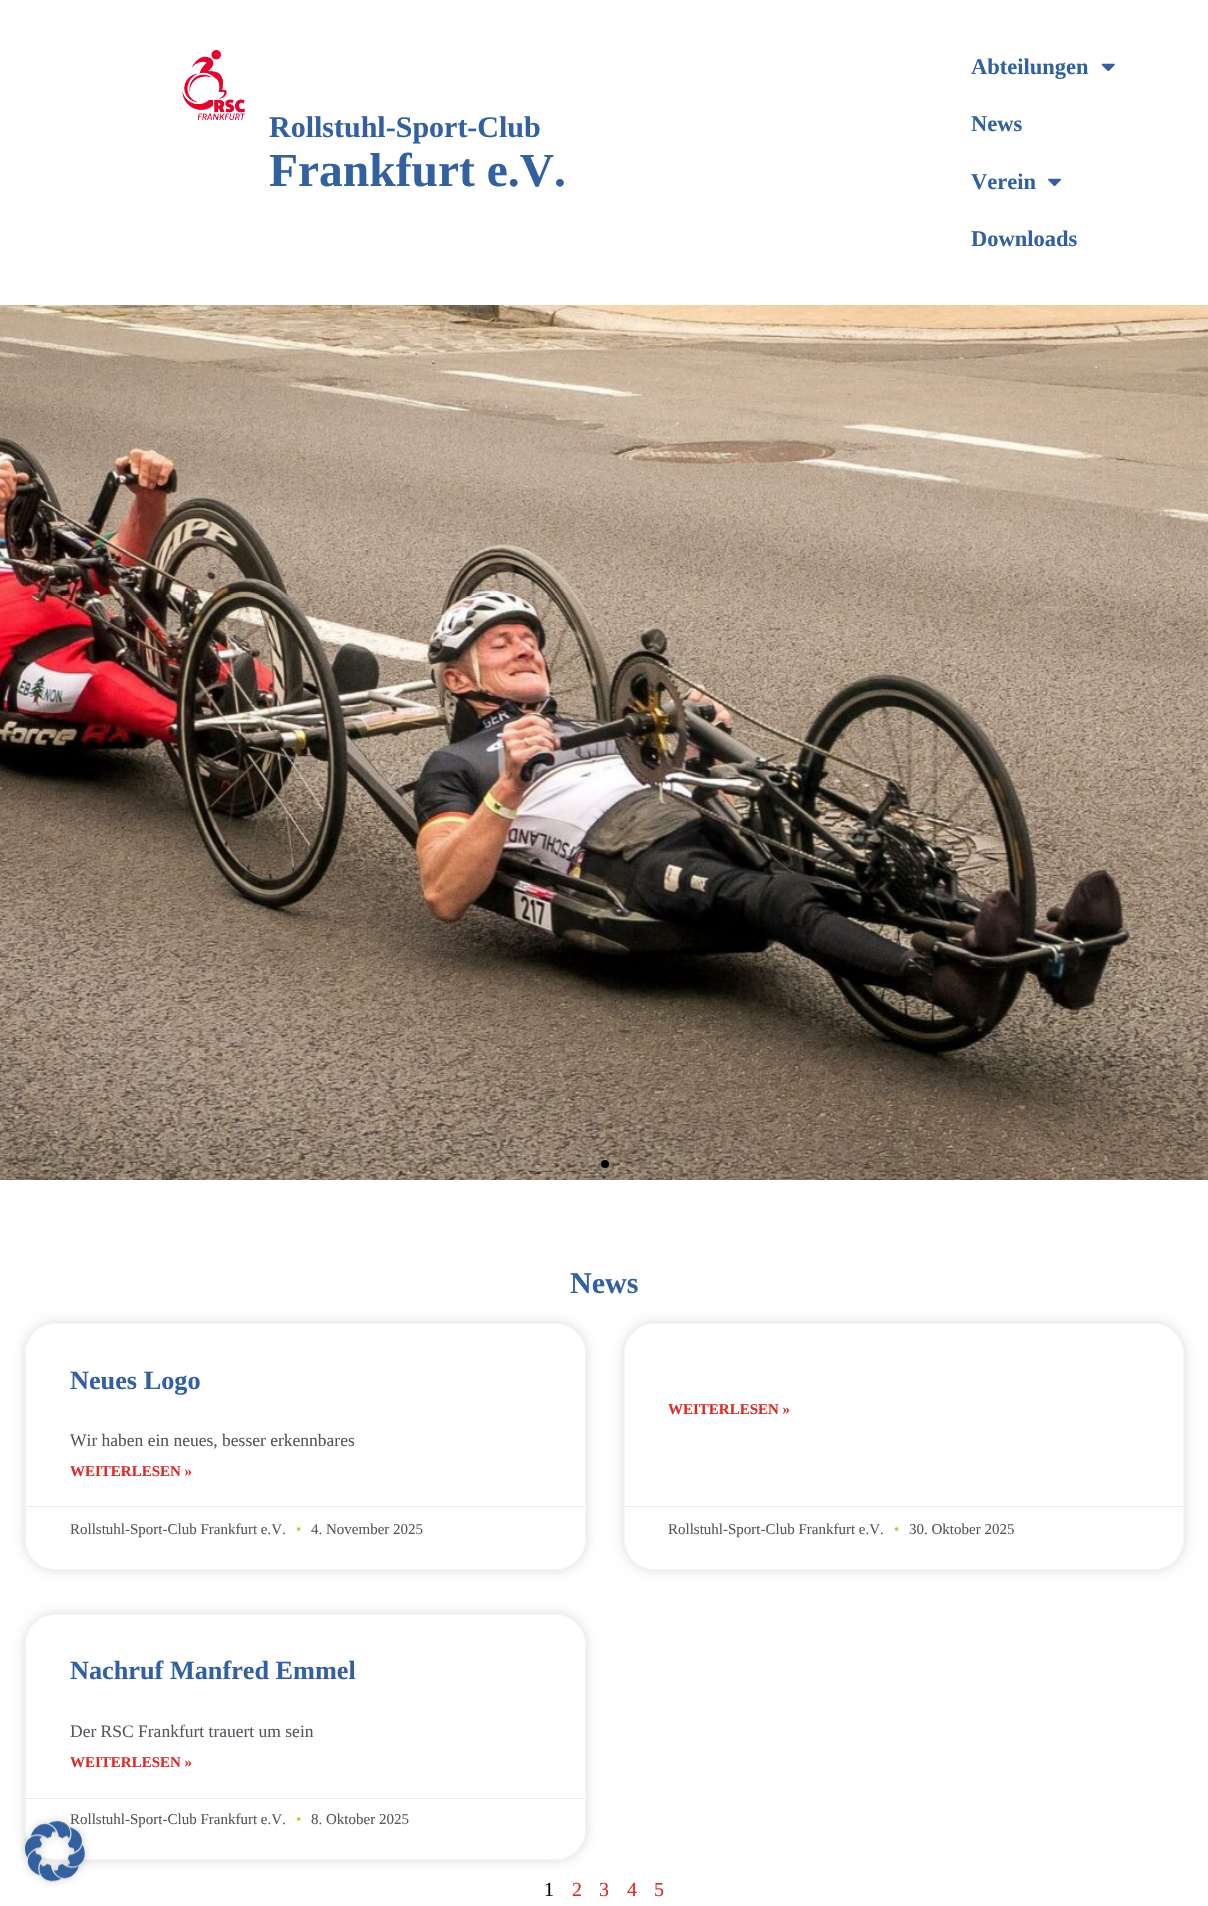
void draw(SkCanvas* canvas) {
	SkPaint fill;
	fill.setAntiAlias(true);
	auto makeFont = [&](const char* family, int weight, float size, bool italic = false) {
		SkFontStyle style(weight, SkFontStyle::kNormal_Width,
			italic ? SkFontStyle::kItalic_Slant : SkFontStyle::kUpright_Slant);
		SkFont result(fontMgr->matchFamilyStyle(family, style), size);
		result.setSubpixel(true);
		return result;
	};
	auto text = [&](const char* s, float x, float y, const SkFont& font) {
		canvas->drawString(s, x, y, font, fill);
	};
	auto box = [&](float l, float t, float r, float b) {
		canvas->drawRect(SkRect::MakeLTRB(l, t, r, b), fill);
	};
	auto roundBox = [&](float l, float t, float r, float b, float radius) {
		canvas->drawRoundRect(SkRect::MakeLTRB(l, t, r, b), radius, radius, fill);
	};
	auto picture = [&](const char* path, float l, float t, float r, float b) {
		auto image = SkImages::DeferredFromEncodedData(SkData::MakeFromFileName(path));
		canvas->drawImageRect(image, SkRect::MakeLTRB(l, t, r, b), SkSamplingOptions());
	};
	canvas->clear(0xFFFFFFFF);
	picture("image0.png", 182, 50, 245, 120);
	picture("image1.png", 1101, 63, 1115, 72);
	picture("image2.png", 1048, 178, 1061, 187);
	picture("image4.png", 0, 305, 1208, 1180);
	fill.setColor(0x33000000);
	roundBox(580, 1161, 584, 1166, 2);
	fill.setColor(0xFF000000);
	canvas->drawCircle(605, 1164, 4, fill);
	fill.setColor(0x33000000);
	roundBox(625, 1161, 629, 1166, 2);
	box(649, 1163, 650, 1166);
	canvas->save();
	canvas->clipPath(SkPathBuilder(SkPathFillType::kEvenOdd).moveTo(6, 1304).lineTo(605, 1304).lineTo(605, 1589).lineTo(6, 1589).close().moveTo(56, 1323).lineTo(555, 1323).cubicTo(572, 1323, 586, 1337, 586, 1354).lineTo(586, 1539).cubicTo(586, 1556, 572, 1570, 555, 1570).lineTo(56, 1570).cubicTo(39, 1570, 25, 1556, 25, 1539).lineTo(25, 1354).cubicTo(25, 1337, 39, 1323, 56, 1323).close().detach(), true);
	fill.setColor(0x26000000);
	fill.setMaskFilter(SkMaskFilter::MakeBlur(kNormal_SkBlurStyle, 6));
	canvas->drawRoundRect(SkRect::MakeLTRB(25, 1323, 586, 1570), 31, 31, fill);
	fill.setMaskFilter(nullptr);
	canvas->restore();
	fill.setColor(0xABFFFFFF);
	roundBox(25, 1323, 586, 1570, 31);
	fill.setStyle(SkPaint::kStroke_Style);
	fill.setStrokeWidth(1);
	fill.setColor(0x7AECECEC);
	canvas->drawRoundRect(SkRect::MakeLTRB(25.5f, 1323.5f, 585.5f, 1569.5f), 30.5f, 30.5f, fill);
	fill.setStyle(SkPaint::kFill_Style);
	fill.setColor(0xFFEAEAEA);
	box(26, 1506, 585, 1507);
	canvas->save();
	canvas->clipPath(SkPathBuilder(SkPathFillType::kEvenOdd).moveTo(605, 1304).lineTo(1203, 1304).lineTo(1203, 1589).lineTo(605, 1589).close().moveTo(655, 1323).lineTo(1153, 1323).cubicTo(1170, 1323, 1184, 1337, 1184, 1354).lineTo(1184, 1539).cubicTo(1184, 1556, 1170, 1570, 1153, 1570).lineTo(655, 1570).cubicTo(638, 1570, 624, 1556, 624, 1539).lineTo(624, 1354).cubicTo(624, 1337, 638, 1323, 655, 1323).close().detach(), true);
	fill.setColor(0x26000000);
	fill.setMaskFilter(SkMaskFilter::MakeBlur(kNormal_SkBlurStyle, 6));
	canvas->drawRoundRect(SkRect::MakeLTRB(624, 1323, 1184, 1570), 31, 31, fill);
	fill.setMaskFilter(nullptr);
	canvas->restore();
	fill.setColor(0xABFFFFFF);
	roundBox(624, 1323, 1184, 1570, 31);
	fill.setStyle(SkPaint::kStroke_Style);
	fill.setColor(0x7AECECEC);
	canvas->drawRoundRect(SkRect::MakeLTRB(624.5f, 1323.5f, 1183.5f, 1569.5f), 30.5f, 30.5f, fill);
	fill.setStyle(SkPaint::kFill_Style);
	fill.setColor(0xFFEAEAEA);
	box(625, 1506, 1183, 1507);
	canvas->save();
	canvas->clipPath(SkPathBuilder(SkPathFillType::kEvenOdd).moveTo(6, 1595).lineTo(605, 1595).lineTo(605, 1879).lineTo(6, 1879).close().moveTo(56, 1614).lineTo(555, 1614).cubicTo(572, 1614, 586, 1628, 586, 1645).lineTo(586, 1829).cubicTo(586, 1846, 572, 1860, 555, 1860).lineTo(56, 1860).cubicTo(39, 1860, 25, 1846, 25, 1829).lineTo(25, 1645).cubicTo(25, 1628, 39, 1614, 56, 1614).close().detach(), true);
	fill.setColor(0x26000000);
	fill.setMaskFilter(SkMaskFilter::MakeBlur(kNormal_SkBlurStyle, 6));
	canvas->drawRoundRect(SkRect::MakeLTRB(25, 1614, 586, 1860), 31, 31, fill);
	fill.setMaskFilter(nullptr);
	canvas->restore();
	fill.setColor(0xABFFFFFF);
	roundBox(25, 1614, 586, 1860, 31);
	fill.setStyle(SkPaint::kStroke_Style);
	fill.setColor(0x7AECECEC);
	canvas->drawRoundRect(SkRect::MakeLTRB(25.5f, 1614.5f, 585.5f, 1859.5f), 30.5f, 30.5f, fill);
	fill.setStyle(SkPaint::kFill_Style);
	fill.setColor(0xFFEAEAEA);
	box(26, 1798, 585, 1799);
	auto font1 = makeFont("Liberation Serif", 700, 30);
	fill.setColor(0xFF3361A0);
	text("Rollstuhl-Sport-Club", 269, 137, font1);
	auto font2 = makeFont("Liberation Serif", 700, 47.5f);
	text("Frankfurt e.V.", 269, 186, font2);
	auto font3 = makeFont("Liberation Serif", 700, 22.5f);
	text("Abteilungen", 971, 74, font3);
	text("News", 971, 131, font3);
	text("Verein", 971, 189, font3);
	text("Downloads", 971, 246, font3);
	text("News", 570, 1293, font1);
	auto font4 = makeFont("Liberation Serif", 700, 26.25f);
	text("Neues Logo", 70, 1389, font4);
	auto font5 = makeFont("Liberation Serif", 400, 17.5f);
	fill.setColor(0xFF54595F);
	text("Wir haben ein neues, besser erkennbares", 70, 1446, font5);
	auto font6 = makeFont("Liberation Serif", 700, 15);
	fill.setColor(0xFFDA2B27);
	text("WEITERLESEN »", 70, 1476, font6);
	auto font7 = makeFont("Liberation Serif", 400, 15);
	fill.setColor(0xFF54595F);
	text("Rollstuhl-Sport-Club Frankfurt e.V.", 70, 1534, font7);
	fill.setColor(0xFFD1C13C);
	text("•", 296, 1534, font7);
	fill.setColor(0xFF54595F);
	text("4. November 2025", 311, 1534, font7);
	fill.setColor(0xFFDA2B27);
	text("WEITERLESEN »", 668, 1414, font6);
	fill.setColor(0xFF54595F);
	text("Rollstuhl-Sport-Club Frankfurt e.V.", 668, 1534, font7);
	fill.setColor(0xFFD1C13C);
	text("•", 894, 1534, font7);
	fill.setColor(0xFF54595F);
	text("30. Oktober 2025", 909, 1534, font7);
	fill.setColor(0xFF3361A0);
	text("Nachruf Manfred Emmel", 70, 1679, font4);
	fill.setColor(0xFF54595F);
	text("Der RSC Frankfurt trauert um sein", 70, 1737, font5);
	fill.setColor(0xFFDA2B27);
	text("WEITERLESEN »", 70, 1767, font6);
	fill.setColor(0xFF54595F);
	text("Rollstuhl-Sport-Club Frankfurt e.V.", 70, 1824, font7);
	picture("image3.png", 20, 1816, 90, 1886);
	fill.setColor(0xFFD1C13C);
	text("•", 296, 1824, font7);
	fill.setColor(0xFF54595F);
	text("8. Oktober 2025", 311, 1824, font7);
	auto font8 = makeFont("Liberation Serif", 400, 20);
	fill.setColor(0xFF000000);
	text("1", 544, 1896, font8);
	fill.setColor(0xFFDA2B27);
	text("2", 572, 1896, font8);
	text("3", 599, 1896, font8);
	text("4", 627, 1896, font8);
	text("5", 654, 1896, font8);
}
